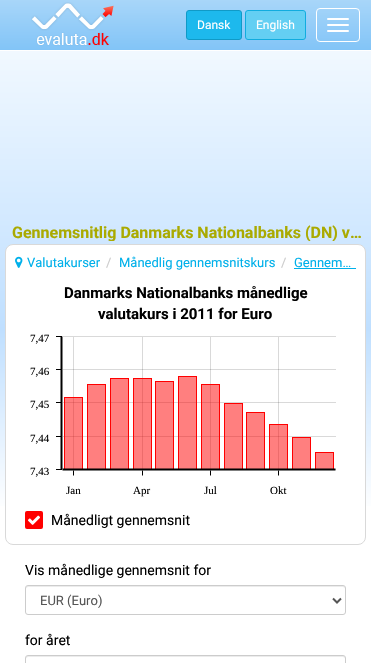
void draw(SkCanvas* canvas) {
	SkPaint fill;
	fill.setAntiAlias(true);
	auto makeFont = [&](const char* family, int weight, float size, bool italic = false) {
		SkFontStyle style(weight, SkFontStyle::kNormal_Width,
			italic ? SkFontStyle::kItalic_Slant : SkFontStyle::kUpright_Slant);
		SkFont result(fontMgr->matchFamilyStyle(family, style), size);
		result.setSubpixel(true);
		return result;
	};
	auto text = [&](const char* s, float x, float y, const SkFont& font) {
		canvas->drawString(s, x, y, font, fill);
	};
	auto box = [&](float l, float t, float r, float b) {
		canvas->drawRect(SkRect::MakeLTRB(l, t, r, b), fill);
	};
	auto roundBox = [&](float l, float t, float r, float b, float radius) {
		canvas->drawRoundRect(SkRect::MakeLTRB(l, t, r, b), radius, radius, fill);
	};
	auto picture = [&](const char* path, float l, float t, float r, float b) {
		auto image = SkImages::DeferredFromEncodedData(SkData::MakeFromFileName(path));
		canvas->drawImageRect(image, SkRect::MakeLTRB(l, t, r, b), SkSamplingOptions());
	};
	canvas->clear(0xFFFFFFFF);
	{
		const SkColor colors[] = {0xFFFAFDFF, 0xFFBFDFFF, 0xFFFFFFFF, 0xFFFFFFFF};
		const float stops[] = {0, 0.09f, 0.14f, 1};
		const SkPoint ends[] = {{185, 0}, {186, 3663}};
		fill.setShader(SkGradientShader::MakeLinear(ends, colors, stops, 4, SkTileMode::kClamp));
		fill.setAlpha(255);
	}
	box(0, 51, 371, 506);
	{
		const SkColor colors[] = {0xFFA8D6F9, 0xFF82C4F7};
		const float stops[] = {0, 1};
		const SkPoint ends[] = {{186, 0}, {186, 50}};
		fill.setShader(SkGradientShader::MakeLinear(ends, colors, stops, 2, SkTileMode::kClamp));
		fill.setAlpha(255);
	}
	box(0, 0, 371, 50);
	picture("image0.png", 31, 2, 114, 46);
	fill.setShader(nullptr);
	fill.setColor(0xFF1DB9ED);
	canvas->drawRoundRect(SkRect::MakeLTRB(186.5f, 10.5f, 241.5f, 39.5f), 2.5f, 2.5f, fill);
	fill.setStyle(SkPaint::kStroke_Style);
	fill.setStrokeWidth(1);
	fill.setColor(0xFF109AC7);
	canvas->drawRoundRect(SkRect::MakeLTRB(186.5f, 10.5f, 241.5f, 39.5f), 2.5f, 2.5f, fill);
	fill.setStyle(SkPaint::kFill_Style);
	fill.setColor(0xFF64CFF3);
	canvas->drawRoundRect(SkRect::MakeLTRB(245.5f, 10.5f, 305.5f, 39.5f), 2.5f, 2.5f, fill);
	fill.setStyle(SkPaint::kStroke_Style);
	fill.setColor(0xFF11ACDF);
	canvas->drawRoundRect(SkRect::MakeLTRB(245.5f, 10.5f, 305.5f, 39.5f), 2.5f, 2.5f, fill);
	fill.setColor(0xFFFFFFFF);
	canvas->drawRoundRect(SkRect::MakeLTRB(316.5f, 8.5f, 359.5f, 41.5f), 3.5f, 3.5f, fill);
	fill.setStyle(SkPaint::kFill_Style);
	roundBox(327, 18, 349, 20, 1);
	roundBox(327, 24, 349, 26, 1);
	roundBox(327, 30, 349, 32, 1);
	canvas->drawRoundRect(SkRect::MakeLTRB(5.5f, 244.5f, 365.5f, 544.5f), 7.5f, 7.5f, fill);
	fill.setStyle(SkPaint::kStroke_Style);
	fill.setColor(0xFFD9D9D9);
	canvas->drawRoundRect(SkRect::MakeLTRB(5.5f, 244.5f, 365.5f, 544.5f), 7.5f, 7.5f, fill);
	picture("image1.png", 15, 256, 23, 268);
	fill.setStyle(SkPaint::kFill_Style);
	fill.setColor(0xFF00B0EA);
	box(294, 268, 356, 269);
	picture("image2.png", 56, 336, 336, 476);
	fill.setColor(0xFFFF0000);
	roundBox(25, 511, 43, 529, 2);
	picture("image3.png", 28, 515, 40, 525);
	fill.setColor(0xFFECECEC);
	canvas->drawPath(SkPathBuilder().moveTo(28, 587).lineTo(343, 587).cubicTo(344, 587, 345, 588, 345, 589).cubicTo(345, 588, 345, 586, 343, 586).lineTo(27, 586).lineTo(26, 587).lineTo(26, 589).cubicTo(26, 588, 27, 587, 28, 587).close().detach(), fill);
	fill.setStyle(SkPaint::kStroke_Style);
	fill.setColor(0xFFCCCCCC);
	canvas->drawRoundRect(SkRect::MakeLTRB(25.5f, 585.5f, 345.5f, 614.5f), 2.5f, 2.5f, fill);
	fill.setStrokeWidth(2);
	fill.setColor(0xFF555555);
	canvas->drawPath(SkPathBuilder().moveTo(333, 598.5f).lineTo(337, 602.5f).lineTo(341, 598.5f).detach(), fill);
	fill.setStyle(SkPaint::kFill_Style);
	fill.setColor(0xFFECECEC);
	canvas->drawPath(SkPathBuilder().moveTo(28, 657).lineTo(343, 657).cubicTo(344, 657, 345, 658, 345, 659).cubicTo(345, 658, 345, 656, 343, 656).lineTo(27, 656).lineTo(26, 657).lineTo(26, 659).cubicTo(26, 658, 27, 657, 28, 657).close().detach(), fill);
	fill.setStyle(SkPaint::kStroke_Style);
	fill.setStrokeWidth(1);
	fill.setColor(0xFFCCCCCC);
	canvas->drawRoundRect(SkRect::MakeLTRB(25.5f, 655.5f, 345.5f, 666.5f), 2.5f, 2.5f, fill);
	auto font1 = makeFont("Roboto", 400, 12);
	fill.setStyle(SkPaint::kFill_Style);
	fill.setColor(0xFFFFFFFF);
	text("Dansk", 197, 29, font1);
	text("English", 256, 29, font1);
	canvas->save();
	canvas->clipRect(SkRect::MakeLTRB(12, 225, 366, 241));
	auto font2 = makeFont("Roboto", 700, 16);
	fill.setColor(0xFFAAAA00);
	text("Gennemsnitlig Danmarks Nationalbanks (DN) v…", 12, 238, font2);
	canvas->restore();
	auto font3 = makeFont("Roboto", 400, 13);
	fill.setColor(0xFF00B0EA);
	text("Valutakurser", 27, 267, font3);
	fill.setColor(0xFFCCCCCC);
	text("/", 106, 267, font3);
	fill.setColor(0xFF00B0EA);
	text("Månedlig gennemsnitskurs", 119, 267, font3);
	fill.setColor(0xFFCCCCCC);
	text("/", 281, 267, font3);
	fill.setColor(0xFF00B0EA);
	text("Gennem…", 294, 267, font3);
	auto font4 = makeFont("Roboto", 700, 15);
	fill.setColor(0xFF000000);
	text("Danmarks Nationalbanks månedlige", 64, 298, font4);
	text("valutakurs i 2011 for Euro", 98, 319, font4);
	auto font5 = makeFont("Liberation Serif", 400, 11);
	text("7,47", 30, 342, font5);
	text("7,46", 30, 375, font5);
	text("7,45", 30, 408, font5);
	text("7,44", 30, 442, font5);
	text("7,43", 30, 475, font5);
	text("Jan", 66, 494, font5);
	text("Apr", 133, 494, font5);
	text("Jul", 204, 494, font5);
	text("Okt", 270, 494, font5);
	auto font6 = makeFont("Roboto", 400, 14);
	text("Månedligt gennemsnit", 51, 525, font6);
	text("Vis månedlige gennemsnit for", 25, 575, font6);
	fill.setColor(0xFF555555);
	text("EUR (Euro)", 40, 605, font3);
	fill.setColor(0xFF000000);
	text("for året", 25, 645, font6);
}
